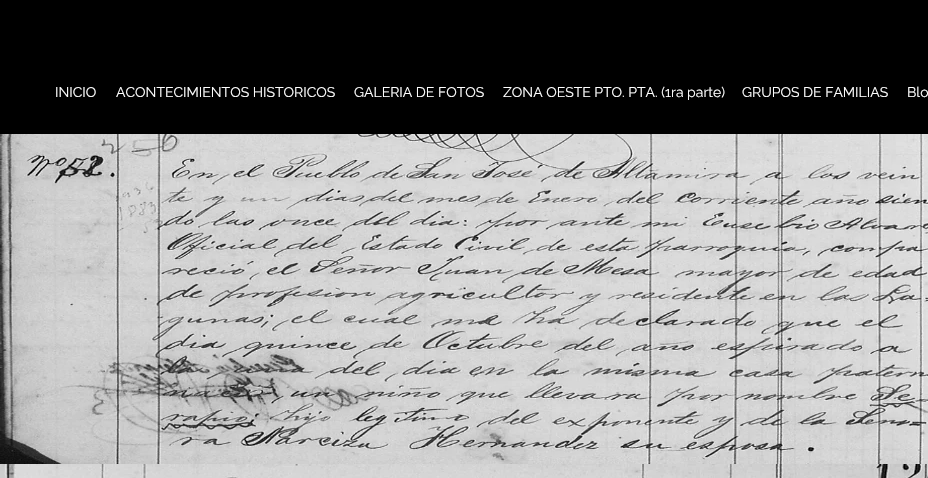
void draw(SkCanvas* canvas) {
	SkPaint fill;
	fill.setAntiAlias(true);
	auto makeFont = [&](const char* family, int weight, float size, bool italic = false) {
		SkFontStyle style(weight, SkFontStyle::kNormal_Width,
			italic ? SkFontStyle::kItalic_Slant : SkFontStyle::kUpright_Slant);
		SkFont result(fontMgr->matchFamilyStyle(family, style), size);
		result.setSubpixel(true);
		return result;
	};
	auto text = [&](const char* s, float x, float y, const SkFont& font) {
		canvas->drawString(s, x, y, font, fill);
	};
	auto picture = [&](const char* path, float l, float t, float r, float b) {
		auto image = SkImages::DeferredFromEncodedData(SkData::MakeFromFileName(path));
		canvas->drawImageRect(image, SkRect::MakeLTRB(l, t, r, b), SkSamplingOptions());
	};
	canvas->clear(0xFF000000);
	picture("image0.png", 0, 134, 928, 464);
	picture("image1.png", 0, 464, 928, 478);
	auto font1 = makeFont("Raleway", 400, 14);
	fill.setColor(0xFFFFFFFF);
	text("INICIO", 55, 97, font1);
	text("ACONTECIMIENTOS HISTORICOS", 116, 97, font1);
	text("GALERIA DE FOTOS", 354, 97, font1);
	text("ZONA OESTE PTO. PTA. (1ra parte)", 503, 97, font1);
	text("GRUPOS DE FAMILIAS", 742, 97, font1);
	text("Blo", 907, 97, font1);
}
